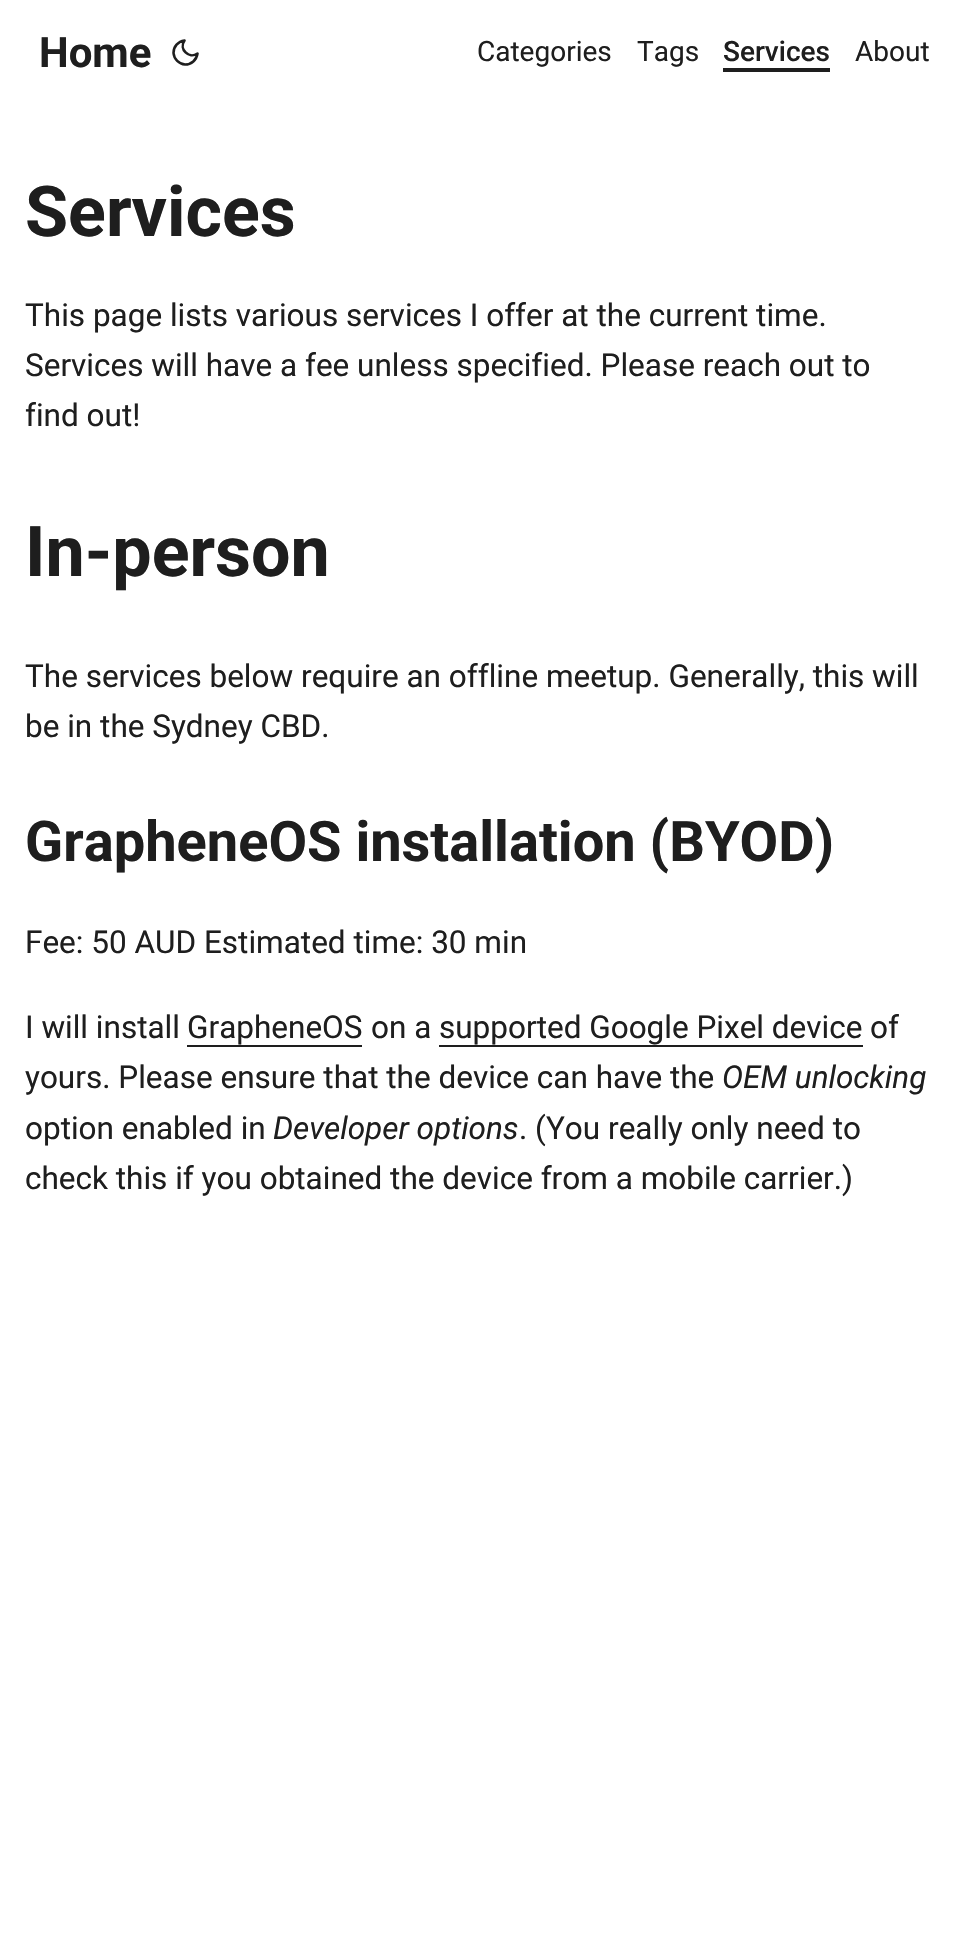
void draw(SkCanvas* canvas) {
	SkPaint fill;
	fill.setAntiAlias(true);
	auto makeFont = [&](const char* family, int weight, float size, bool italic = false) {
		SkFontStyle style(weight, SkFontStyle::kNormal_Width,
			italic ? SkFontStyle::kItalic_Slant : SkFontStyle::kUpright_Slant);
		SkFont result(fontMgr->matchFamilyStyle(family, style), size);
		result.setSubpixel(true);
		return result;
	};
	auto text = [&](const char* s, float x, float y, const SkFont& font) {
		canvas->drawString(s, x, y, font, fill);
	};
	auto box = [&](float l, float t, float r, float b) {
		canvas->drawRect(SkRect::MakeLTRB(l, t, r, b), fill);
	};
	canvas->clear(0xFFFFFFFF);
	fill.setStyle(SkPaint::kStroke_Style);
	fill.setStrokeWidth(2.6f);
	fill.setStrokeCap(SkPaint::kRound_Cap);
	fill.setStrokeJoin(SkPaint::kRound_Join);
	fill.setColor(0xFF1E1E1E);
	canvas->drawPath(SkPathBuilder().moveTo(197.5f, 53.5f).cubicTo(196.5f, 60, 191.5f, 64.5f, 185, 64.5f).cubicTo(179, 64, 174, 59, 173.5f, 53).cubicTo(173.5f, 46.5f, 178, 41.5f, 184.5f, 40.5f).cubicTo(178.5f, 49, 189, 59.5f, 197.5f, 53.5f).close().detach(), fill);
	fill.setStyle(SkPaint::kFill_Style);
	box(723, 68, 830, 72);
	canvas->drawPath(SkPathBuilder().moveTo(187, 1010).lineTo(187, 1047).lineTo(362, 1047).lineTo(362, 1045).lineTo(187, 1045).close().detach(), fill);
	canvas->drawPath(SkPathBuilder().moveTo(439, 1010).lineTo(439, 1047).lineTo(863, 1047).lineTo(863, 1010).lineTo(863, 1045).lineTo(439, 1045).close().detach(), fill);
	auto font1 = makeFont("Roboto", 700, 42);
	text("Home", 39, 67, font1);
	auto font2 = makeFont("Roboto", 400, 28);
	text("Categories", 477, 61, font2);
	text("Tags", 637, 61, font2);
	auto font3 = makeFont("Roboto", 500, 28);
	text("Services", 723, 61, font3);
	text("About", 855, 61, font2);
	auto font4 = makeFont("Roboto", 700, 70);
	text("Services", 25, 236, font4);
	auto font5 = makeFont("Roboto", 400, 31.5f);
	text("This page lists various services I offer at the current time.", 25, 326, font5);
	text("Services will have a fee unless specified. Please reach out to", 25, 376, font5);
	text("find out!", 25, 426, font5);
	text("In-person", 25, 576, font4);
	text("The services below require an offline meetup. Generally, this will", 25, 687, font5);
	text("be in the Sydney CBD.", 25, 737, font5);
	auto font6 = makeFont("Roboto", 700, 56);
	text("GrapheneOS installation (BYOD)", 25, 861, font6);
	text("Fee: 50 AUD Estimated time: 30 min", 25, 953, font5);
	text("I will install", 25, 1038, font5);
	text("GrapheneOS", 187, 1038, font5);
	text("on a", 371, 1038, font5);
	text("supported Google Pixel device", 439, 1038, font5);
	text("of", 870, 1038, font5);
	text("yours. Please ensure that the device can have the", 25, 1088, font5);
	auto font7 = makeFont("Roboto", 400, 31.5f, true);
	text("OEM unlocking", 722, 1088, font7);
	text("option enabled in", 25, 1139, font5);
	text("Developer options", 273, 1139, font7);
	text(". (You really only need to", 519, 1139, font5);
	text("check this if you obtained the device from a mobile carrier.)", 25, 1189, font5);
}
